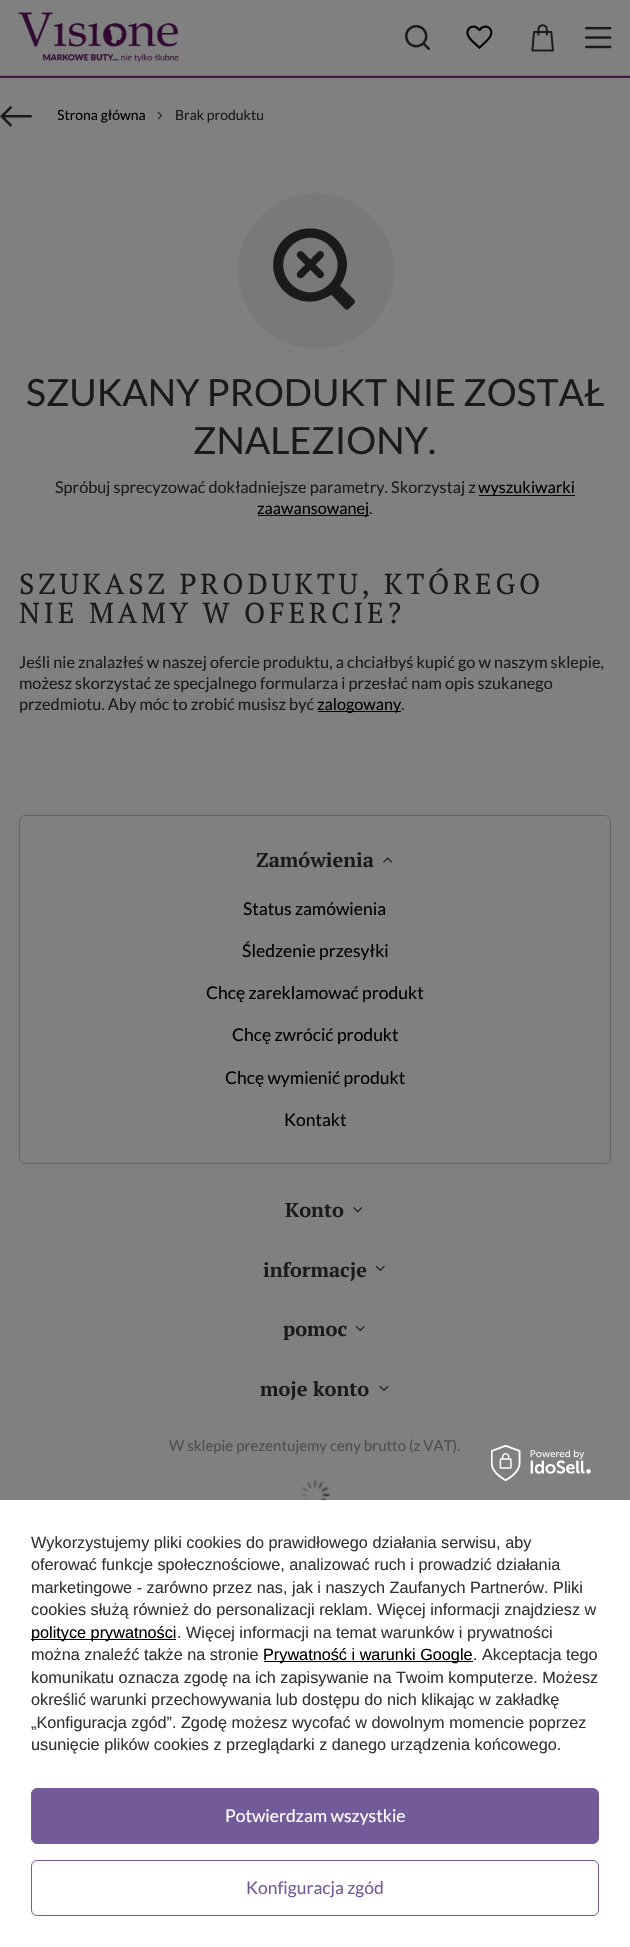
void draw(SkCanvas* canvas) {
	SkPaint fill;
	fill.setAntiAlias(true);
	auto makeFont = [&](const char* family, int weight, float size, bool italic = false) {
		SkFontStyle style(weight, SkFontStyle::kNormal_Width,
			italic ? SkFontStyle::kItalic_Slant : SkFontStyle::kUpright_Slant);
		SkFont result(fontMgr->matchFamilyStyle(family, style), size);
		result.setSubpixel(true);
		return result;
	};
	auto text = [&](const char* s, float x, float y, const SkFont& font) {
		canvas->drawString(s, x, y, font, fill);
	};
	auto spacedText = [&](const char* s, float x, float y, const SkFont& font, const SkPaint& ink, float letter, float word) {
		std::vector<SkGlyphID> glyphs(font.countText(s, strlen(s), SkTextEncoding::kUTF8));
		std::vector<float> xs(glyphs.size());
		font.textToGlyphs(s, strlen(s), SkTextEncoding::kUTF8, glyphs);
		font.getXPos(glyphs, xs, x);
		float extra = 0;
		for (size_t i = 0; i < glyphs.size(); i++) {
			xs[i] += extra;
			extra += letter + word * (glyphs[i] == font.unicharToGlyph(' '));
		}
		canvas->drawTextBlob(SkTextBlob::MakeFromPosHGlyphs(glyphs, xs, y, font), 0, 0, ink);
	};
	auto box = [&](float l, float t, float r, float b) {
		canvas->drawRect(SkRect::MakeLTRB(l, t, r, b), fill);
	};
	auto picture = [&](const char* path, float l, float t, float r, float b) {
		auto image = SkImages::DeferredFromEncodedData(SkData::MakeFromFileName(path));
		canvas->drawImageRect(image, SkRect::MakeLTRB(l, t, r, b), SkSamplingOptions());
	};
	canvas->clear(0xFF808080);
	picture("image0.png", 18, 12, 179, 63);
	picture("image1.png", 405, 25, 430, 50);
	picture("image2.png", 466, 25, 493, 49);
	picture("image3.png", 531, 24, 554, 52);
	picture("image4.png", 585, 26, 612, 49);
	fill.setColor(0xFF41183C);
	box(0, 76, 630, 78);
	fill.setColor(0xFF736B72);
	box(0, 75, 630, 76);
	picture("image5.png", 0, 106, 32, 127);
	picture("image6.png", 157, 111, 163, 120);
	fill.setColor(0xFF797979);
	canvas->drawCircle(316, 271, 78, fill);
	picture("image7.png", 273, 228, 355, 310);
	fill.setColor(0xFF000000);
	box(479, 495, 575, 496);
	box(258, 515, 369, 516);
	box(318, 711, 401, 712);
	fill.setStyle(SkPaint::kStroke_Style);
	fill.setStrokeWidth(1);
	fill.setColor(0xFF626464);
	canvas->drawRoundRect(SkRect::MakeLTRB(19.5f, 815.5f, 610.5f, 1163.5f), 5.5f, 5.5f, fill);
	picture("image8.png", 383, 857, 393, 863);
	picture("image9.png", 353, 1207, 363, 1213);
	picture("image10.png", 375, 1265, 385, 1272);
	picture("image10.png", 355, 1325, 365, 1332);
	picture("image11.png", 379, 1385, 389, 1392);
	picture("image12.png", 300, 1480, 330, 1500);
	fill.setStyle(SkPaint::kFill_Style);
	fill.setColor(0xFFFFFFFF);
	box(0, 1500, 630, 1947);
	picture("image13.png", 491, 1445, 591, 1481);
	fill.setColor(0xFF000000);
	box(31, 1639, 176, 1640);
	box(264, 1661, 473, 1662);
	fill.setColor(0xFF735B99);
	canvas->drawRoundRect(SkRect::MakeLTRB(31.5f, 1788.5f, 598.5f, 1843.5f), 5.5f, 5.5f, fill);
	fill.setStyle(SkPaint::kStroke_Style);
	canvas->drawRoundRect(SkRect::MakeLTRB(31.5f, 1788.5f, 598.5f, 1843.5f), 5.5f, 5.5f, fill);
	canvas->drawRoundRect(SkRect::MakeLTRB(31.5f, 1860.5f, 598.5f, 1915.5f), 5.5f, 5.5f, fill);
	canvas->save();
	canvas->clipPath(SkPathBuilder().moveTo(64, 96).lineTo(258, 96).cubicTo(261.5f, 96, 264, 98.5f, 264, 102).lineTo(264, 129).cubicTo(264, 132.5f, 261.5f, 135, 258, 135).lineTo(64, 135).cubicTo(60.5f, 135, 58, 132.5f, 58, 129).lineTo(58, 102).cubicTo(58, 98.5f, 60.5f, 96, 64, 96).close().detach(), true);
	auto font1 = makeFont("Lato", 400, 14);
	fill.setStyle(SkPaint::kFill_Style);
	fill.setColor(0xFF000000);
	text("Strona główna", 57, 120, font1);
	canvas->restore();
	fill.setColor(0xFF1A1A1A);
	text("Brak produktu", 175, 120, font1);
	auto font2 = makeFont("Lato", 400, 37.5f);
	text("SZUKANY PRODUKT NIE ZOSTAŁ", 26, 406, font2);
	text("ZNALEZIONY.", 193, 454, font2);
	auto font3 = makeFont("Lato", 400, 16.25f);
	text("Spróbuj sprecyzować dokładniejsze parametry. Skorzystaj z", 55, 493, font3);
	fill.setColor(0xFF000000);
	text("wyszukiwarki", 478, 493, font3);
	text("zaawansowanej", 257, 514, font3);
	fill.setColor(0xFF1A1A1A);
	text(".", 369, 514, font3);
	auto font4 = makeFont("PT Serif", 400, 28.75f);
	spacedText("SZUKASZ PRODUKTU, KTÓREGO", 19, 594, font4, fill, 3.75f, 0);
	spacedText("NIE MAMY W OFERCIE?", 19, 623, font4, fill, 3.75f, 0);
	text("Jeśli nie znalazłeś w naszej ofercie produktu, a chciałbyś kupić go w naszym sklepie,", 19, 668, font3);
	text("możesz skorzystać ze specjalnego formularza i przesłać nam opis szukanego", 19, 689, font3);
	text("przedmiotu. Aby móc to zrobić musisz być", 19, 710, font3);
	fill.setColor(0xFF000000);
	text("zalogowany", 317, 710, font3);
	fill.setColor(0xFF1A1A1A);
	text(".", 401, 710, font3);
	auto font5 = makeFont("PT Serif", 700, 20);
	text("Zamówienia", 256, 867, font5);
	auto font6 = makeFont("Lato", 400, 17.5f);
	fill.setColor(0xFF000000);
	text("Status zamówienia", 243, 915, font6);
	text("Śledzenie przesyłki", 242, 957, font6);
	text("Chcę zareklamować produkt", 206, 999, font6);
	text("Chcę zwrócić produkt", 232, 1041, font6);
	text("Chcę wymienić produkt", 225, 1084, font6);
	text("Kontakt", 284, 1126, font6);
	fill.setColor(0xFF1A1A1A);
	text("Konto", 285, 1217, font5);
	text("informacje", 263, 1277, font5);
	text("pomoc", 283, 1336, font5);
	text("moje konto", 260, 1396, font5);
	auto font7 = makeFont("Lato", 400, 15);
	fill.setColor(0xFF4D4D4D);
	text("W sklepie prezentujemy ceny brutto (z VAT).", 169, 1451, font7);
	auto font8 = makeFont("Liberation Sans", 400, 16.25f);
	fill.setColor(0xFF333333);
	text("Wykorzystujemy pliki cookies do prawidłowego działania serwisu, aby", 31, 1548, font8);
	text("oferować funkcje społecznościowe, analizować ruch i prowadzić działania", 31, 1570, font8);
	text("marketingowe - zarówno przez nas, jak i naszych Zaufanych Partnerów. Pliki", 31, 1593, font8);
	text("cookies służą również do personalizacji reklam. Więcej informacji znajdziesz w", 31, 1615, font8);
	fill.setColor(0xFF000000);
	text("polityce prywatności", 31, 1638, font8);
	fill.setColor(0xFF333333);
	text(". Więcej informacji na temat warunków i prywatności", 177, 1638, font8);
	text("można znaleźć także na stronie", 31, 1660, font8);
	fill.setColor(0xFF000000);
	text("Prywatność i warunki Google", 263, 1660, font8);
	fill.setColor(0xFF333333);
	text(". Akceptacja tego", 473, 1660, font8);
	text("komunikatu oznacza zgodę na ich zapisywanie na Twoim komputerze. Możesz", 31, 1683, font8);
	text("określić warunki przechowywania lub dostępu do nich klikając w zakładkę", 31, 1705, font8);
	text("„Konfiguracja zgód”. Zgodę możesz wycofać w dowolnym momencie poprzez", 31, 1728, font8);
	text("usunięcie plików cookies z przeglądarki z danego urządzenia końcowego.", 31, 1750, font8);
	fill.setColor(0xFFFFFFFF);
	text("Potwierdzam wszystkie", 225, 1822, font6);
	fill.setColor(0xFF735B99);
	text("Konfiguracja zgód", 246, 1894, font6);
}
